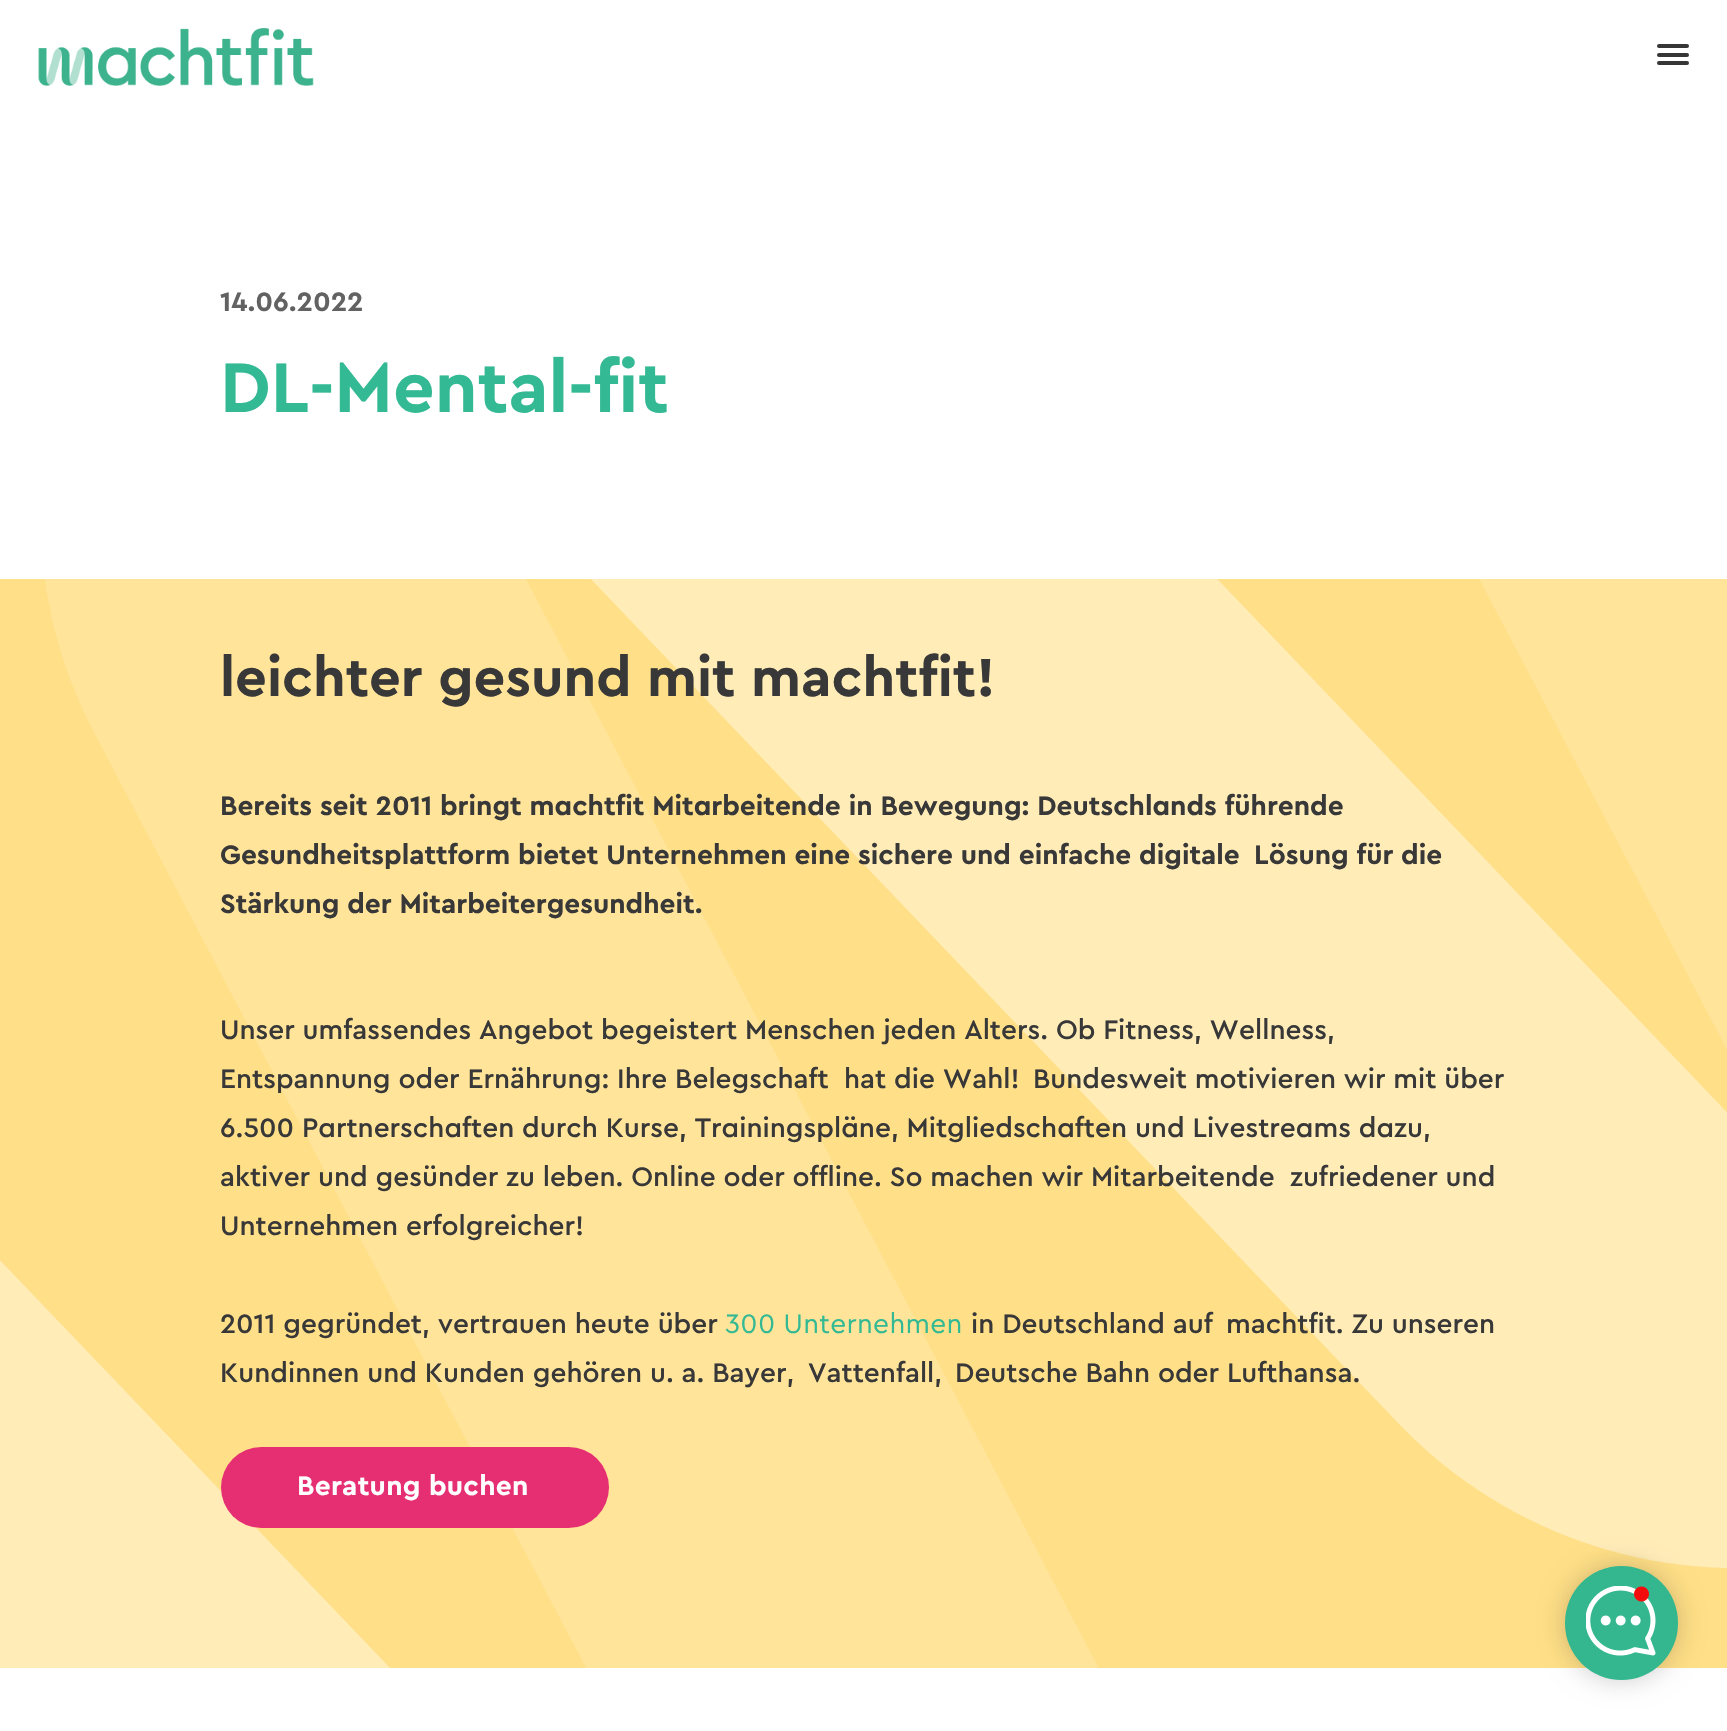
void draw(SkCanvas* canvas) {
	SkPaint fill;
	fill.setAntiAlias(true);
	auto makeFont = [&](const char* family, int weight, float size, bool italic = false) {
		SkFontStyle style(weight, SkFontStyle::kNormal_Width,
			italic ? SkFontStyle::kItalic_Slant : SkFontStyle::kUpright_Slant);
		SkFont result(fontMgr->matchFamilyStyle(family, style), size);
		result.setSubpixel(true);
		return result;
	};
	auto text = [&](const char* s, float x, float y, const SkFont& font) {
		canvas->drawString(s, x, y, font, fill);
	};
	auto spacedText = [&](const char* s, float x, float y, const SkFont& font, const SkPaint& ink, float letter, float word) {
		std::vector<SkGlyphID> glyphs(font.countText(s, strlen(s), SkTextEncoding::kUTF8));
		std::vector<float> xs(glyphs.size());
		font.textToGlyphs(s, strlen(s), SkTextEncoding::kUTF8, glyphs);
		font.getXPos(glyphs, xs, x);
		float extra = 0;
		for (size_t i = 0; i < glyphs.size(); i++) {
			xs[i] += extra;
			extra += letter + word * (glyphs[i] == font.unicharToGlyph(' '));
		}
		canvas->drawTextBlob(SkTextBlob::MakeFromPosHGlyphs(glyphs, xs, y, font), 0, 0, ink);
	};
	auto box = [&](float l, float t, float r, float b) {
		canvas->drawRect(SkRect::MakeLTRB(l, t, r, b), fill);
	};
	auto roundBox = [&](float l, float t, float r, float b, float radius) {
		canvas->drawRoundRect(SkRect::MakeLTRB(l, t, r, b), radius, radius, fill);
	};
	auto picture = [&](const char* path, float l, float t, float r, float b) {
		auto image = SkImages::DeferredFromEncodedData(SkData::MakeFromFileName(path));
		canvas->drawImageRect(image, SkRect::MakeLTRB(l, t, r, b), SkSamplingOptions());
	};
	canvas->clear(0xFFFFFFFF);
	picture("image0.png", 38, 28, 314, 86);
	fill.setColor(0xFF363636);
	roundBox(1657, 44, 1689, 48, 2);
	roundBox(1657, 53, 1689, 57, 2);
	roundBox(1657, 61, 1689, 65, 2);
	fill.setColor(0xFFFFDF87);
	box(0, 579, 1727, 1668);
	picture("image1.png", 0, 579, 1727, 1668);
	fill.setColor(0xFFE62E73);
	roundBox(221, 1447, 609, 1528, 40.5f);
	fill.setColor(0x33000000);
	fill.setMaskFilter(SkMaskFilter::MakeBlur(kNormal_SkBlurStyle, 13));
	canvas->drawRoundRect(SkRect::MakeLTRB(1565, 1566, 1678, 1680), 56.5f, 56.5f, fill);
	fill.setMaskFilter(nullptr);
	fill.setColor(0xFF34B78F);
	roundBox(1565, 1566, 1678, 1680, 56.5f);
	picture("image2.png", 1586, 1586, 1656, 1656);
	auto font1 = makeFont("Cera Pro", 700, 28);
	fill.setColor(0xFF626262);
	text("14.06.2022", 220, 311, font1);
	auto font2 = makeFont("Cera Pro", 700, 73.5f);
	fill.setColor(0xFF33B993);
	text("DL-Mental-fit", 220, 412, font2);
	auto font3 = makeFont("Cera Pro", 700, 56);
	fill.setColor(0xFF383838);
	text("leichter gesund mit machtfit!", 220, 696, font3);
	auto font4 = makeFont("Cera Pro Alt", 700, 28);
	text("Bereits seit 2011 bringt machtfit Mitarbeitende in Bewegung: Deutschlands führende", 220, 815, font4);
	text("Gesundheitsplattform bietet Unternehmen eine sichere und einfache digitale", 220, 864, font1);
	text("Lösung für die", 1254, 864, font1);
	text("Stärkung der Mitarbeitergesundheit.", 220, 913, font1);
	auto font5 = makeFont("Cera Pro", 500, 28);
	text("Unser umfassendes Angebot begeistert Menschen jeden Alters. Ob Fitness, Wellness,", 220, 1039, font5);
	text("Entspannung oder Ernährung: Ihre Belegschaft", 220, 1088, font5);
	text("hat die Wahl!", 844, 1088, font5);
	text("Bundesweit motivieren wir mit über", 1033, 1088, font5);
	auto font6 = makeFont("Cera Pro Alt", 500, 28);
	text("6.500 Partnerschaften durch Kurse, Trainingspläne, Mitgliedschaften und Livestreams dazu,", 220, 1137, font6);
	text("aktiver und gesünder zu leben. Online oder offline. So machen wir Mitarbeitende", 220, 1186, font5);
	text("zufriedener und", 1290, 1186, font5);
	text("Unternehmen erfolgreicher!", 220, 1235, font5);
	text("2011 gegründet, vertrauen heute über", 220, 1333, font6);
	auto font7 = makeFont("Cera Pro", 400, 28);
	fill.setColor(0xFF33B993);
	spacedText("300 Unternehmen", 725, 1333, font7, fill, 0.3f, 0);
	fill.setColor(0xFF383838);
	text("in Deutschland auf", 971, 1333, font5);
	text("machtfit. Zu unseren", 1226, 1333, font5);
	text("Kundinnen und Kunden gehören u. a. Bayer,", 220, 1382, font5);
	text("Vattenfall,", 808, 1382, font5);
	text("Deutsche Bahn oder Lufthansa.", 955, 1382, font5);
	fill.setColor(0xFFFFFFFF);
	spacedText("Beratung buchen", 297, 1495, font1, fill, 0.3f, 0);
}
